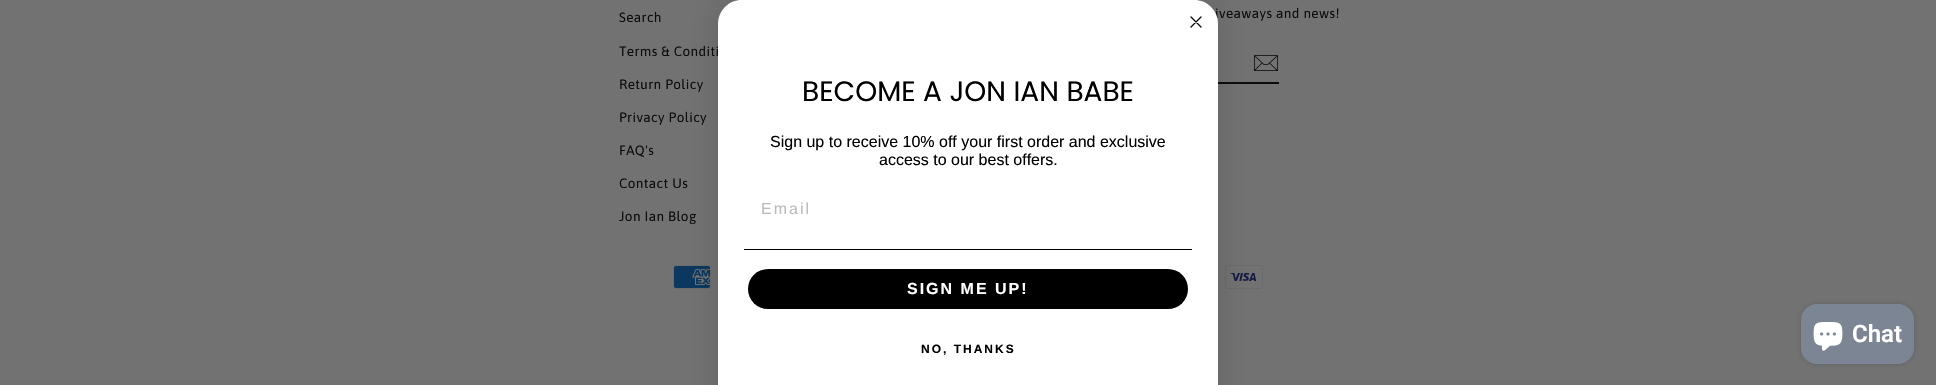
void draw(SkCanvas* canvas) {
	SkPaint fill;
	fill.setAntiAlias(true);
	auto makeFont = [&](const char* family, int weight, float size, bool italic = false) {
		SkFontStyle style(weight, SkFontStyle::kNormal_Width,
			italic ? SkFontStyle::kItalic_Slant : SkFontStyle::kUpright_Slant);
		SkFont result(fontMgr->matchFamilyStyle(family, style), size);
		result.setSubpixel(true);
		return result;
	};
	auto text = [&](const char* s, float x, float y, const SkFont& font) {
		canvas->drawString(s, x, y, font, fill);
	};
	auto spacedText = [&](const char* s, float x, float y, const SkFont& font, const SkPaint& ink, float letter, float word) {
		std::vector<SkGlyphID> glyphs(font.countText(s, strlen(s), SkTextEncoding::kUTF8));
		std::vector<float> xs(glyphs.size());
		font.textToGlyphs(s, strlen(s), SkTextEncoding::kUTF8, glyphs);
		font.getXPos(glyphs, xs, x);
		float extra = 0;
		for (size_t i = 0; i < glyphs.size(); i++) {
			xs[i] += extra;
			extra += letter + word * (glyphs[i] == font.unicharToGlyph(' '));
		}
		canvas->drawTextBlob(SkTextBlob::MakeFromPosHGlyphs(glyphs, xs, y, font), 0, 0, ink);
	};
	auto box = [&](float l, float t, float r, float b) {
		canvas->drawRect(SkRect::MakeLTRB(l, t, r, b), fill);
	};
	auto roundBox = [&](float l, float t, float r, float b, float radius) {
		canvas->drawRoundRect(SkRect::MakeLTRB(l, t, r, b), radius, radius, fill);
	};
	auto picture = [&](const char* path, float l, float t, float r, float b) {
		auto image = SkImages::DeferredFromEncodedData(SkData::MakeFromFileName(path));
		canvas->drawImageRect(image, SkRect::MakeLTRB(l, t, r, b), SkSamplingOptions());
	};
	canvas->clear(0xFF727272);
	picture("image0.png", 1253, 55, 1279, 71);
	fill.setColor(0xFF0C0C0C);
	box(1218, 82, 1279, 84);
	picture("image1.png", 673, 265, 711, 289);
	picture("image2.png", 1225, 265, 1263, 289);
	fill.setColor(0x26000000);
	fill.setMaskFilter(SkMaskFilter::MakeBlur(kNormal_SkBlurStyle, 15));
	canvas->drawRoundRect(SkRect::MakeLTRB(718, 0, 1218, 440), 24, 24, fill);
	fill.setMaskFilter(nullptr);
	fill.setMaskFilter(SkMaskFilter::MakeBlur(kNormal_SkBlurStyle, 2.5f));
	canvas->drawRoundRect(SkRect::MakeLTRB(1801, 304, 1914, 364), 16, 16, fill);
	fill.setMaskFilter(nullptr);
	fill.setColor(0xFF7C8593);
	roundBox(1801, 304, 1914, 364, 16);
	picture("image4.png", 1813, 322, 1843, 351);
	auto font1 = makeFont("Asap", 400, 13.5f);
	fill.setColor(0xFF0C0C0C);
	spacedText("Search", 619, 22, font1, fill, 0.4f, 0);
	spacedText("Terms & Conditi", 619, 56, font1, fill, 0.4f, 0);
	spacedText("Return Policy", 619, 89, font1, fill, 0.4f, 0);
	spacedText("Privacy Policy", 619, 122, font1, fill, 0.4f, 0);
	spacedText("FAQ's", 619, 155, font1, fill, 0.4f, 0);
	spacedText("Contact Us", 619, 188, font1, fill, 0.4f, 0);
	spacedText("Jon Ian Blog", 619, 221, font1, fill, 0.4f, 0);
	spacedText("iveaways and news!", 1215, 18, font1, fill, 0.4f, 0);
	fill.setColor(0xFFFFFFFF);
	canvas->drawPath(SkPathBuilder().moveTo(742, 0).lineTo(1194, 0).cubicTo(1207.5f, 0, 1218, 10.5f, 1218, 24).lineTo(1218, 385).lineTo(718, 385).lineTo(718, 24).cubicTo(718, 10.5f, 728.5f, 0, 742, 0).close().detach(), fill);
	fill.setStyle(SkPaint::kStroke_Style);
	fill.setStrokeWidth(1.2f);
	fill.setStrokeCap(SkPaint::kRound_Cap);
	fill.setStrokeJoin(SkPaint::kRound_Join);
	fill.setColor(0xFF000000);
	canvas->drawPath(SkPathBuilder().moveTo(1191, 17).lineTo(1201, 27).moveTo(1191, 27).lineTo(1201, 17).close().detach(), fill);
	auto font2 = makeFont("Poppins", 400, 28);
	fill.setStyle(SkPaint::kFill_Style);
	text("BECOME A JON IAN BABE", 802, 101, font2);
	auto font3 = makeFont("Liberation Sans", 400, 16);
	text("Sign up to receive 10% off your first order and exclusive", 770, 147, font3);
	text("access to our best offers.", 879, 165, font3);
	fill.setColor(0xFFBBBBBB);
	spacedText("Email", 761, 214, font3, fill, 2, 0);
	picture("image3.png", 744, 249, 1192, 250);
	fill.setColor(0xFF000000);
	roundBox(748, 269, 1188, 309, 20);
	auto font4 = makeFont("Liberation Sans", 700, 16);
	fill.setColor(0xFFFFFFFF);
	spacedText("SIGN ME UP!", 907, 294, font4, fill, 2, 0);
	auto font5 = makeFont("Liberation Sans", 700, 12);
	fill.setColor(0xFF000000);
	spacedText("NO, THANKS", 921, 353, font5, fill, 2, 0);
	auto font6 = makeFont("Roboto", 600, 24);
	fill.setColor(0xFFFFFFFF);
	text("Chat", 1852, 342, font6);
}
